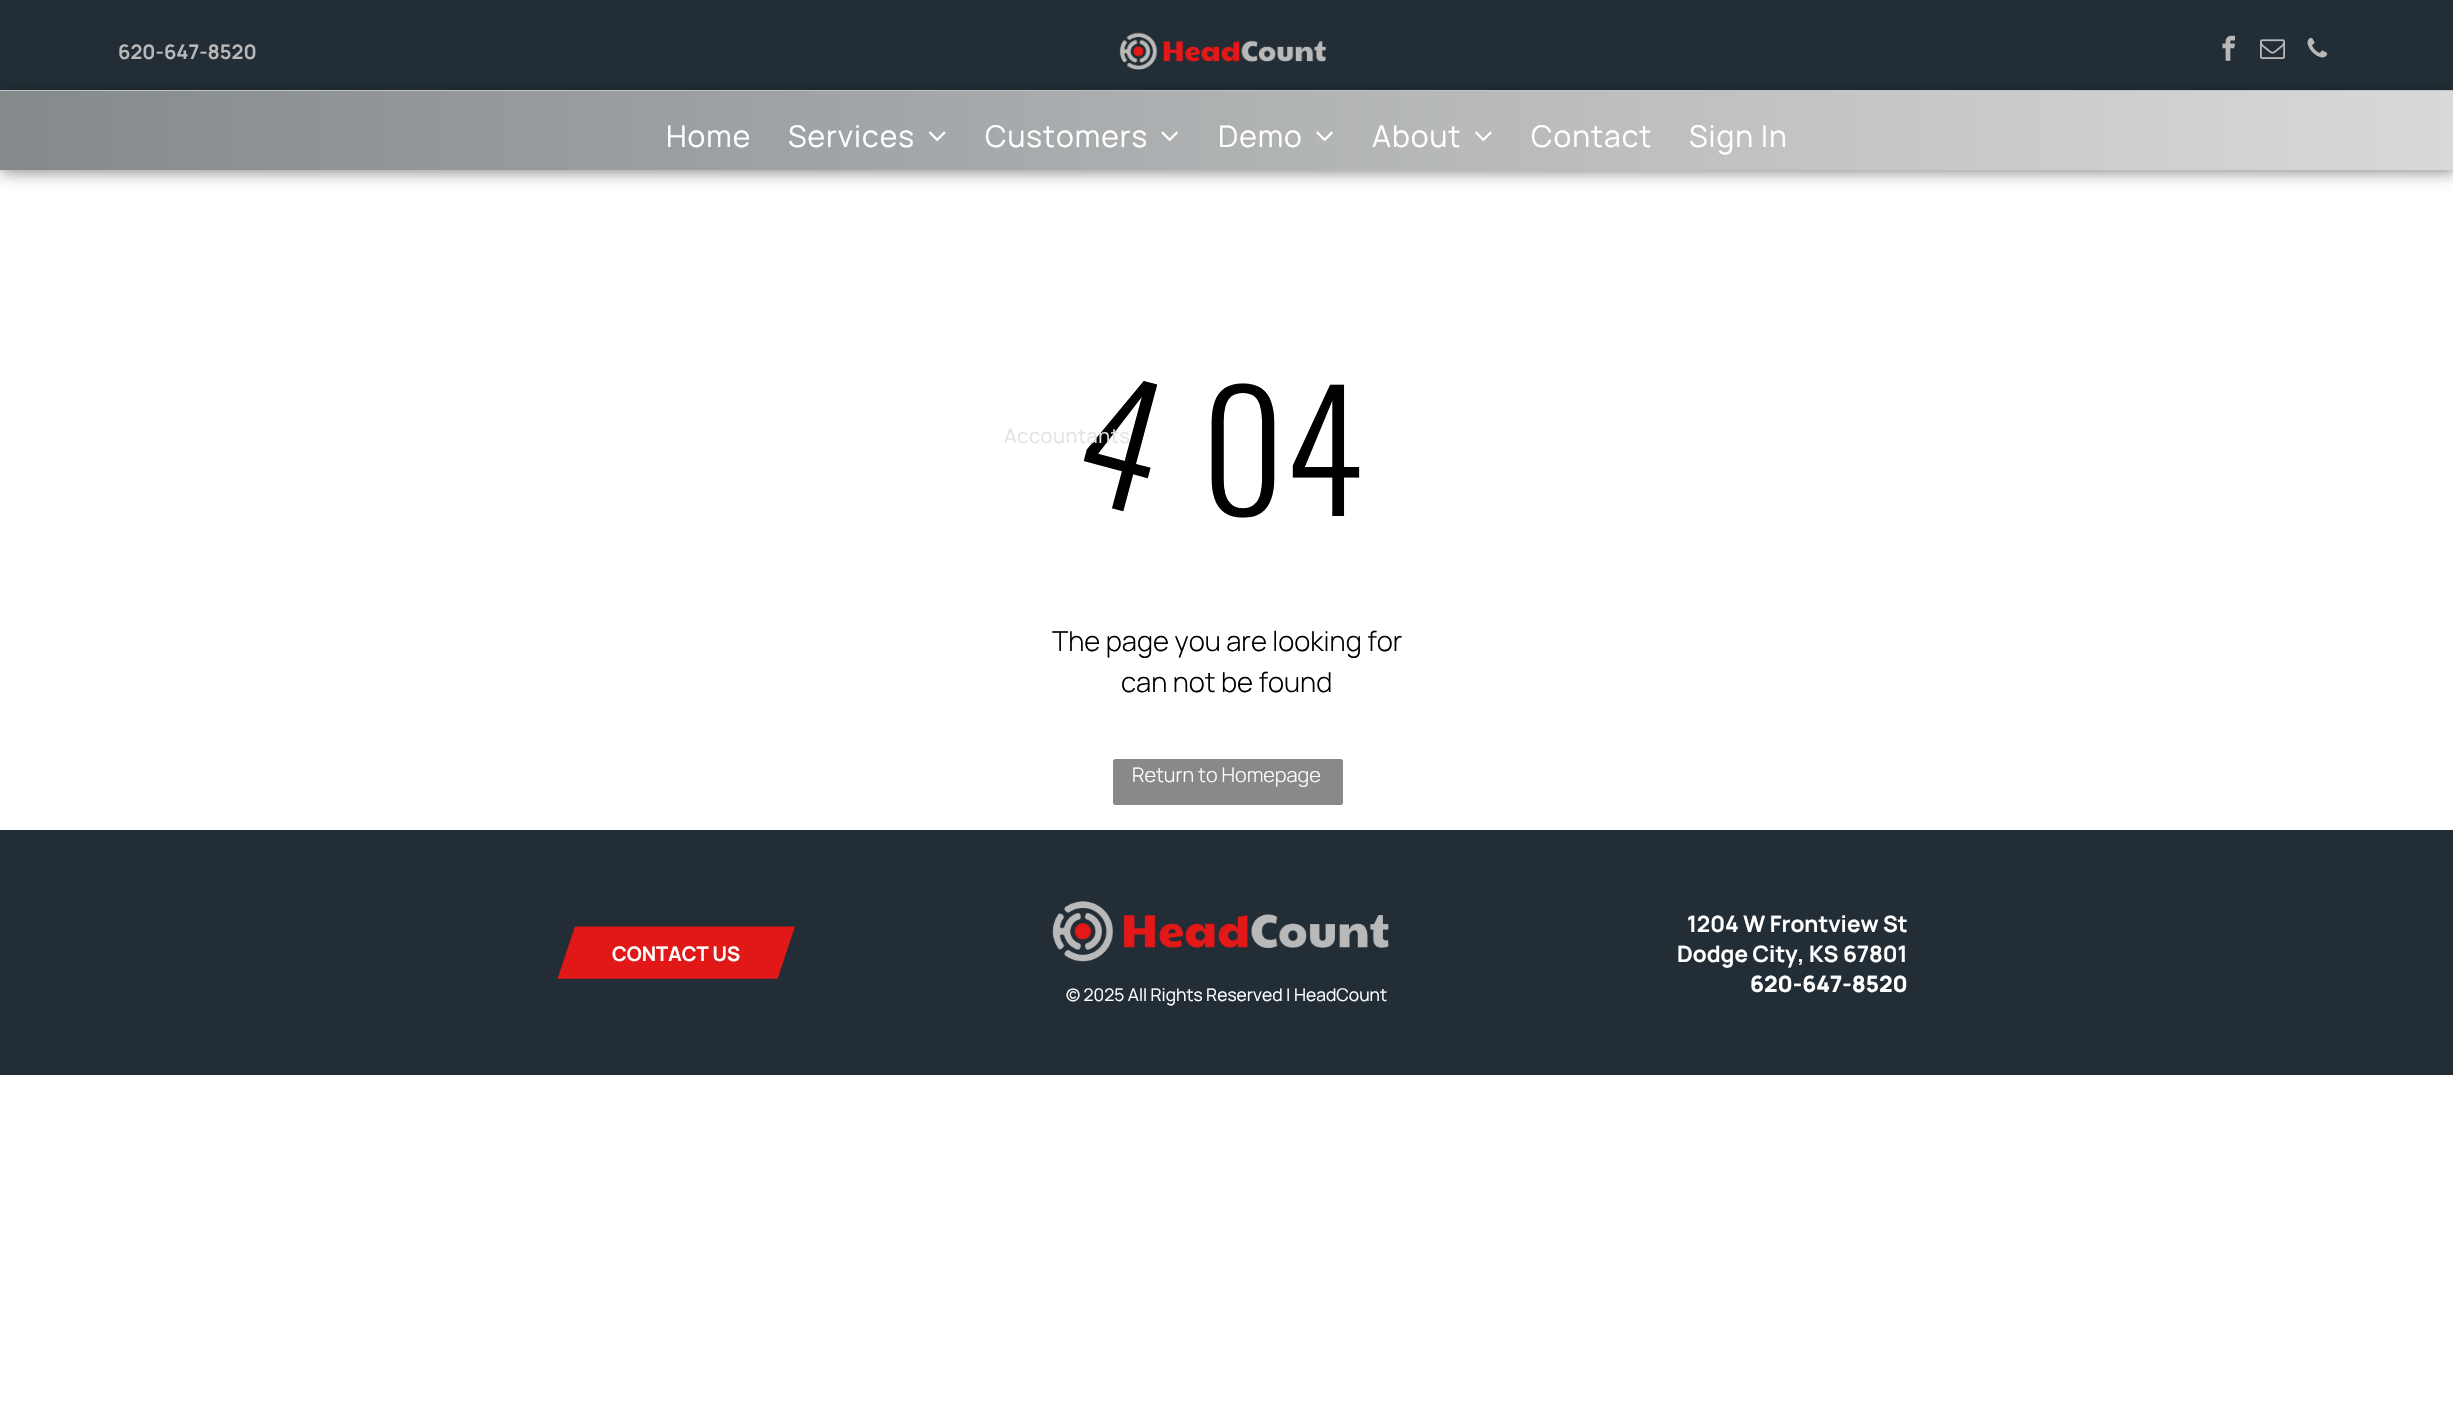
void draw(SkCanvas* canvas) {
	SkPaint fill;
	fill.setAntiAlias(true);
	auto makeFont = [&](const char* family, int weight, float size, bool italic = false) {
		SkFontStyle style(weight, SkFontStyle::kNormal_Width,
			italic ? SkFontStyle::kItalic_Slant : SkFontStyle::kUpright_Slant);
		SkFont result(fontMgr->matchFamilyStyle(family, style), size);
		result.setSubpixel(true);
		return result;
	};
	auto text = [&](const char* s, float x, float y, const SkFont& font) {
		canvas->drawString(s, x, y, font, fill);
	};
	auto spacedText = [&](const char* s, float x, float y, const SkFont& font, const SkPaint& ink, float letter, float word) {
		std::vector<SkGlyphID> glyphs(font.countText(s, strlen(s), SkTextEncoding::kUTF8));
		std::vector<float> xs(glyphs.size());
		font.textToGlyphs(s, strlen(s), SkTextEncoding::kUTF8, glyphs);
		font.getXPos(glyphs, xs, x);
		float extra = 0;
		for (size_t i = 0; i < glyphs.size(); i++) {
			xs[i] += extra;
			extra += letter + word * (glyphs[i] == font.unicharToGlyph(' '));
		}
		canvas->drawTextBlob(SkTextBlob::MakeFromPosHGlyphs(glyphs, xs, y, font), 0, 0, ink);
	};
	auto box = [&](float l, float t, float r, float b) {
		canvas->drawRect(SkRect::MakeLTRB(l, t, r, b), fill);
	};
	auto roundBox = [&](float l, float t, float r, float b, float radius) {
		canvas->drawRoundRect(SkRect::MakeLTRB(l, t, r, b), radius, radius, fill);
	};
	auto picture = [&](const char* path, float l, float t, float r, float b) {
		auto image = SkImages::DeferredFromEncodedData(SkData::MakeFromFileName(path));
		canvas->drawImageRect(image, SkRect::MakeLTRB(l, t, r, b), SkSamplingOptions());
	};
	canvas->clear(0xFFFFFFFF);
	fill.setColor(0x40000000);
	fill.setMaskFilter(SkMaskFilter::MakeBlur(kNormal_SkBlurStyle, 7));
	canvas->drawRect(SkRect::MakeLTRB(0, 4, 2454, 174), fill);
	fill.setMaskFilter(nullptr);
	fill.setColor(0xFF222D35);
	box(0, 0, 2453, 90);
	picture("image0.png", 1119, 32, 1326, 70);
	picture("image1.png", 2222, 35, 2235, 61);
	picture("image2.png", 2260, 39, 2285, 59);
	picture("image3.png", 2307, 37, 2328, 58);
	fill.setColor(0x40000000);
	fill.setMaskFilter(SkMaskFilter::MakeBlur(kNormal_SkBlurStyle, 7));
	canvas->drawRect(SkRect::MakeLTRB(4, 90, 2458, 170), fill);
	fill.setMaskFilter(nullptr);
	{
		const SkColor colors[] = {0xFF84898C, 0xFFD9D9D9};
		const float stops[] = {0, 1};
		const SkPoint ends[] = {{0, 130}, {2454, 130}};
		fill.setShader(SkGradientShader::MakeLinear(ends, colors, stops, 2, SkTileMode::kClamp));
		fill.setAlpha(255);
	}
	box(0, 91, 2453, 170);
	fill.setShader(nullptr);
	fill.setColor(0xFFC0C4C9);
	box(0, 90, 2453, 91);
	picture("image4.png", 928, 131, 946, 142);
	picture("image5.png", 1161, 131, 1178, 142);
	picture("image6.png", 1316, 131, 1333, 142);
	picture("image7.png", 1475, 131, 1492, 142);
	fill.setColor(0xFF898989);
	roundBox(1113, 759, 1343, 805, 2.5f);
	fill.setColor(0xFF222D35);
	box(0, 830, 2453, 1075);
	picture("image8.png", 557, 926, 795, 979);
	picture("image9.png", 1052, 901, 1389, 962);
	auto font1 = makeFont("Manrope", 700, 20);
	fill.setColor(0xFFB8B8B8);
	text("620-647-8520", 118, 59, font1);
	auto font2 = makeFont("Manrope", 400, 30);
	fill.setColor(0xFFFFFFFF);
	spacedText("Home", 666, 147, font2, fill, 1, 0);
	spacedText("Services", 788, 147, font2, fill, 1, 0);
	spacedText("Customers", 985, 147, font2, fill, 1, 0);
	spacedText("Demo", 1218, 147, font2, fill, 1, 0);
	spacedText("About", 1372, 147, font2, fill, 1, 0);
	spacedText("Contact", 1531, 147, font2, fill, 1, 0);
	spacedText("Sign In", 1689, 147, font2, fill, 1, 0);
	auto font3 = makeFont("Oswald", 300, 162);
	fill.setColor(0xFF000000);
	canvas->save();
	canvas->rotate(15, 1066, 496);
	text("4", 1066, 496, font3);
	canvas->restore();
	auto font4 = makeFont("Manrope", 400, 20);
	fill.setColor(0xFFE3E3E3);
	spacedText("Accountants", 1004, 443, font4, fill, 0.6f, 0);
	fill.setColor(0xFF000000);
	text("04", 1201, 516, font3);
	auto font5 = makeFont("Manrope", 300, 27.5f);
	text("The page you are looking for", 1052, 651, font5);
	text("can not be found", 1121, 692, font5);
	auto font6 = makeFont("Manrope", 300, 20);
	fill.setColor(0xFFFFFFFF);
	text("Return to Homepage", 1132, 782, font6);
	text("CONTACT US", 612, 961, font1);
	auto font7 = makeFont("Manrope", 700, 22.5f);
	text("1204 W Frontview St", 1687, 932, font7);
	text("Dodge City, KS 67801", 1677, 962, font7);
	auto font8 = makeFont("Manrope", 800, 22.5f);
	text("620-647-8520", 1750, 992, font8);
	auto font9 = makeFont("Manrope", 400, 17.5f);
	text("© 2025 All Rights Reserved | HeadCount", 1066, 1001, font9);
}
